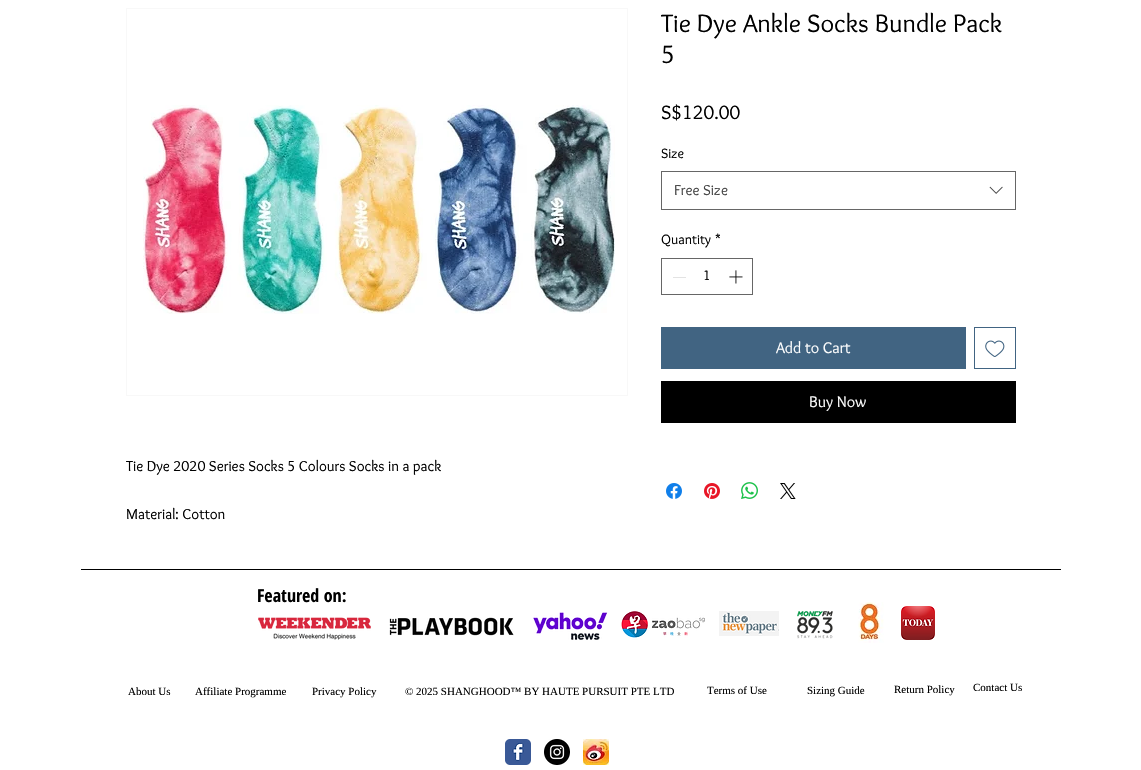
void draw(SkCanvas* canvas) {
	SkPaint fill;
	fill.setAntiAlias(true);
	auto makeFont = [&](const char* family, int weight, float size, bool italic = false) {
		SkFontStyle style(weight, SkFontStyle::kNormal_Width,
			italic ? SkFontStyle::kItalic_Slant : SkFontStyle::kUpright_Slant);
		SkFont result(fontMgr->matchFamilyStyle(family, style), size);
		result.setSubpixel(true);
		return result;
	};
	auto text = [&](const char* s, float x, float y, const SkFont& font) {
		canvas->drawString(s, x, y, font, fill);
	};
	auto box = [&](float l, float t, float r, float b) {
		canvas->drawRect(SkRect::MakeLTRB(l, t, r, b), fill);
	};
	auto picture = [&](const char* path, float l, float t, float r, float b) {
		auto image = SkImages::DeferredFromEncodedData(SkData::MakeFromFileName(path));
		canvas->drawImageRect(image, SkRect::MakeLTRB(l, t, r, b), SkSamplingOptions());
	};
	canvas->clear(0xFFFFFFFF);
	fill.setStyle(SkPaint::kStroke_Style);
	fill.setStrokeWidth(1);
	fill.setColor(0xFF666666);
	canvas->drawRect(SkRect::MakeLTRB(661.5f, 171.5f, 1015.5f, 209.5f), fill);
	picture("image0.png", 989, 186, 1003, 194);
	canvas->drawRect(SkRect::MakeLTRB(661.5f, 258.5f, 752.5f, 294.5f), fill);
	fill.setStyle(SkPaint::kFill_Style);
	fill.setColor(0xFFE3E3E3);
	box(673, 277, 686, 278);
	picture("image1.png", 729, 270, 743, 284);
	fill.setColor(0xFF416482);
	box(661, 327, 966, 369);
	fill.setStyle(SkPaint::kStroke_Style);
	canvas->drawRect(SkRect::MakeLTRB(974.5f, 327.5f, 1015.5f, 368.5f), fill);
	picture("image2.png", 985, 340, 1005, 357);
	fill.setStyle(SkPaint::kFill_Style);
	fill.setColor(0xFF000000);
	box(661, 381, 1016, 423);
	picture("image3.png", 666, 483, 682, 499);
	picture("image4.png", 704, 483, 720, 499);
	picture("image5.png", 741, 482, 758, 499);
	picture("image6.png", 780, 483, 796, 499);
	fill.setStyle(SkPaint::kStroke_Style);
	fill.setColor(0xFFF8F8F8);
	canvas->drawRect(SkRect::MakeLTRB(126.5f, 8.5f, 627.5f, 395.5f), fill);
	picture("image7.png", 143, 105, 615, 314);
	fill.setStyle(SkPaint::kFill_Style);
	fill.setColor(0xFF000000);
	box(81, 569, 1061, 570);
	picture("image8.png", 258, 617, 371, 640);
	picture("image9.png", 389, 617, 514, 636);
	picture("image10.png", 533, 612, 608, 640);
	picture("image11.png", 621, 611, 705, 640);
	picture("image12.png", 719, 611, 779, 636);
	picture("image13.png", 797, 611, 833, 639);
	picture("image14.png", 858, 602, 884, 643);
	picture("image15.png", 901, 606, 935, 640);
	picture("image16.png", 505, 739, 531, 765);
	picture("image17.png", 544, 739, 570, 765);
	picture("image18.png", 583, 739, 609, 765);
	auto font1 = makeFont("Overlock", 400, 26);
	text("Tie Dye Ankle Socks Bundle Pack", 661, 32, font1);
	text("5", 661, 63, font1);
	auto font2 = makeFont("Overlock", 400, 20);
	text("S$120.00", 661, 119, font2);
	auto font3 = makeFont("Overlock", 400, 14);
	text("Size", 661, 158, font3);
	auto font4 = makeFont("Overlock", 400, 15);
	fill.setColor(0xFF444444);
	text("Free Size", 674, 195, font4);
	fill.setColor(0xFF000000);
	text("Quantity", 661, 244, font3);
	text("*", 715, 244, font3);
	text("1", 703, 280, font3);
	auto font5 = makeFont("Overlock", 400, 16);
	fill.setColor(0xFFFFFFFF);
	text("Add to Cart", 776, 353, font5);
	text("Buy Now", 809, 407, font5);
	fill.setColor(0xFF000000);
	text("Tie Dye 2020 Series Socks 5 Colours Socks in a pack", 126, 471, font4);
	text("Material: Cotton", 126, 519, font4);
	auto font6 = makeFont("Open Sans Condensed", 700, 18);
	text("Featured on:", 257, 602, font6);
	auto font7 = makeFont("Liberation Serif", 400, 11);
	text("About Us", 128, 695, font7);
	text("Affiliate Programme", 195, 695, font7);
	text("Privacy Policy", 312, 695, font7);
	text("© 2025 SHANGHOOD™ BY HAUTE PURSUIT PTE LTD", 405, 695, font7);
	text("Terms of Use", 707, 694, font7);
	text("Sizing Guide", 807, 694, font7);
	text("Return Policy", 894, 693, font7);
	text("Contact Us", 973, 691, font7);
}
